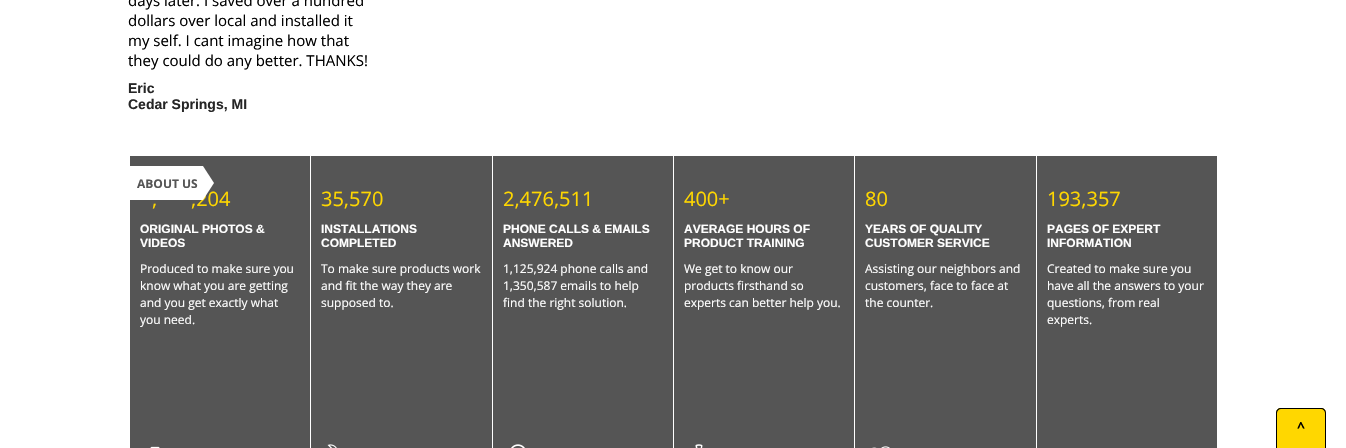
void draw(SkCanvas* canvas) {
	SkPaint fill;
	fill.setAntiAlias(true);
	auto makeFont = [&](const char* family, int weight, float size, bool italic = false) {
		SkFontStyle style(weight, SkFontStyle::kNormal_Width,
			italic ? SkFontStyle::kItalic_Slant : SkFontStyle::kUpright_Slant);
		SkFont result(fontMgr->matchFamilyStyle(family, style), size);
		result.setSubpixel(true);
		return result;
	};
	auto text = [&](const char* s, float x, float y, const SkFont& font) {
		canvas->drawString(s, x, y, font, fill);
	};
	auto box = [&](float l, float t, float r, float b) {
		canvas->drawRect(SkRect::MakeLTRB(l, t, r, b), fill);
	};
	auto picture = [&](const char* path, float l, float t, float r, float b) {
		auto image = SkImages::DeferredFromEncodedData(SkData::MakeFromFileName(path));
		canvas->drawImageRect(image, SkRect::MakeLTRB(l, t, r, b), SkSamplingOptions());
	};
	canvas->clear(0xFFFFFFFF);
	fill.setColor(0xFF555555);
	box(130, 156, 310, 448);
	picture("image0.png", 150, 446, 160, 448);
	box(311, 156, 492, 448);
	picture("image1.png", 327, 444, 337, 448);
	box(493, 156, 673, 448);
	picture("image2.png", 511, 444, 525, 448);
	box(674, 156, 854, 448);
	picture("image3.png", 695, 444, 703, 448);
	box(855, 156, 1036, 448);
	picture("image4.png", 872, 446, 890, 448);
	box(1037, 156, 1217, 448);
	fill.setColor(0xFFFFD700);
	canvas->drawPath(SkPathBuilder().moveTo(1281, 408).lineTo(1321, 408).cubicTo(1324, 408, 1326, 410, 1326, 413).lineTo(1326, 448).lineTo(1276, 448).lineTo(1276, 413).cubicTo(1276, 410, 1278, 408, 1281, 408).close().detach(), fill);
	fill.setColor(0xFF000000);
	canvas->drawPath(SkPathBuilder(SkPathFillType::kEvenOdd).moveTo(1281, 408).lineTo(1321, 408).cubicTo(1324, 408, 1326, 410, 1326, 413).lineTo(1326, 448).lineTo(1276, 448).lineTo(1276, 413).cubicTo(1276, 410, 1278, 408, 1281, 408).close().moveTo(1281, 409).lineTo(1321, 409).cubicTo(1323, 409, 1325, 411, 1325, 413).lineTo(1325, 448).lineTo(1277, 448).lineTo(1277, 413).cubicTo(1277, 411, 1279, 409, 1281, 409).close().detach(), fill);
	auto font1 = makeFont("Open Sans", 400, 15);
	text("days later. I saved over a hundred", 128, 6, font1);
	text("dollars over local and installed it", 128, 26, font1);
	text("my self. I cant imagine how that", 128, 46, font1);
	text("they could do any better. THANKS!", 128, 66, font1);
	auto font2 = makeFont("Liberation Sans", 700, 14);
	fill.setColor(0xFF262626);
	text("Eric", 128, 93, font2);
	text("Cedar Springs, MI", 128, 109, font2);
	auto font3 = makeFont("Open Sans", 400, 20);
	fill.setColor(0xFFFFD700);
	text(",", 152, 206, font3);
	text(",204", 191, 206, font3);
	fill.setColor(0xFFFFFFFF);
	canvas->drawPath(SkPathBuilder().moveTo(129, 166).lineTo(129, 200).lineTo(203, 200).lineTo(214, 183).lineTo(203, 166).close().detach(), fill);
	auto font4 = makeFont("Open Sans", 700, 12);
	fill.setColor(0xFF555555);
	text("ABOUT US", 137, 188, font4);
	auto font5 = makeFont("Liberation Sans", 700, 12);
	fill.setColor(0xFFFFFFFF);
	text("ORIGINAL PHOTOS &", 140, 233, font5);
	text("VIDEOS", 140, 247, font5);
	auto font6 = makeFont("Open Sans", 400, 12);
	text("Produced to make sure you", 140, 273, font6);
	text("know what you are getting", 140, 290, font6);
	text("and you get exactly what", 140, 307, font6);
	text("you need.", 140, 324, font6);
	fill.setColor(0xFFFFD700);
	text("35,570", 321, 206, font3);
	fill.setColor(0xFFFFFFFF);
	text("INSTALLATIONS", 321, 233, font5);
	text("COMPLETED", 321, 247, font5);
	text("To make sure products work", 321, 273, font6);
	text("and fit the way they are", 321, 290, font6);
	text("supposed to.", 321, 307, font6);
	fill.setColor(0xFFFFD700);
	text("2,476,511", 503, 206, font3);
	fill.setColor(0xFFFFFFFF);
	text("PHONE CALLS & EMAILS", 503, 233, font5);
	text("ANSWERED", 503, 247, font5);
	text("1,125,924 phone calls and", 503, 273, font6);
	text("1,350,587 emails to help", 503, 290, font6);
	text("find the right solution.", 503, 307, font6);
	fill.setColor(0xFFFFD700);
	text("400+", 684, 206, font3);
	fill.setColor(0xFFFFFFFF);
	text("AVERAGE HOURS OF", 684, 233, font5);
	text("PRODUCT TRAINING", 684, 247, font5);
	text("We get to know our", 684, 273, font6);
	text("products firsthand so", 684, 290, font6);
	text("experts can better help you.", 684, 307, font6);
	fill.setColor(0xFFFFD700);
	text("80", 865, 206, font3);
	fill.setColor(0xFFFFFFFF);
	text("YEARS OF QUALITY", 865, 233, font5);
	text("CUSTOMER SERVICE", 865, 247, font5);
	text("Assisting our neighbors and", 865, 273, font6);
	text("customers, face to face at", 865, 290, font6);
	text("the counter.", 865, 307, font6);
	fill.setColor(0xFFFFD700);
	text("193,357", 1047, 206, font3);
	fill.setColor(0xFFFFFFFF);
	text("PAGES OF EXPERT", 1047, 233, font5);
	text("INFORMATION", 1047, 247, font5);
	text("Created to make sure you", 1047, 273, font6);
	text("have all the answers to your", 1047, 290, font6);
	text("questions, from real", 1047, 307, font6);
	text("experts.", 1047, 324, font6);
	auto font7 = makeFont("Open Sans", 700, 14);
	fill.setColor(0xFF000000);
	text("^", 1297, 432, font7);
}
